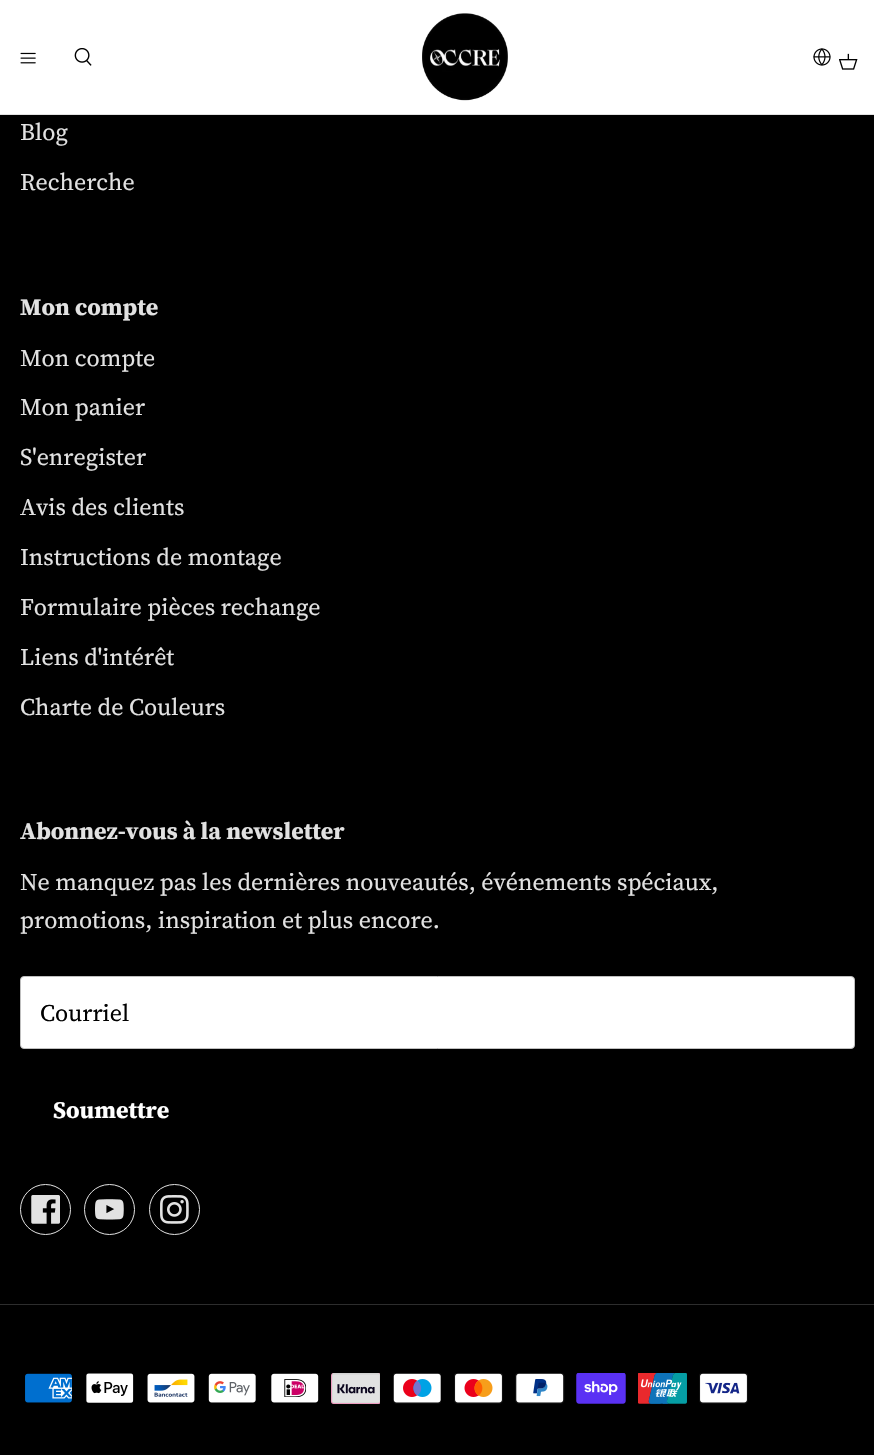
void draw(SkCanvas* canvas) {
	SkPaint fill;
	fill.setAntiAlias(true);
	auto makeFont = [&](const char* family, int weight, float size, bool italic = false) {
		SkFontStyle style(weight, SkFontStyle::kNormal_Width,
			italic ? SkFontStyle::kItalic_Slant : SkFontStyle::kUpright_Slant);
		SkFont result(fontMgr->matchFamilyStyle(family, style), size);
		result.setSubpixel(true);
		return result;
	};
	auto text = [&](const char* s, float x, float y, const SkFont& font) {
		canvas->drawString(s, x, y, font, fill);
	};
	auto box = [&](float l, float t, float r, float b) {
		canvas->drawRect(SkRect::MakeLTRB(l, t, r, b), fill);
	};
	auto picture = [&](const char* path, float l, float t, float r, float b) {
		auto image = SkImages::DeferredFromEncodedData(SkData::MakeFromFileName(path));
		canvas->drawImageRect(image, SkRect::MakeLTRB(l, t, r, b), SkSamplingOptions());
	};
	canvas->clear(0xFF000000);
	fill.setColor(0xFFFFFFFF);
	box(0, 0, 874, 114);
	fill.setColor(0xFFE2E2E2);
	box(0, 114, 874, 115);
	picture("image0.png", 20, 52, 36, 64);
	picture("image1.png", 74, 48, 92, 66);
	picture("image2.png", 422, 13, 508, 101);
	picture("image3.png", 813, 48, 831, 66);
	picture("image4.png", 839, 53, 858, 70);
	fill.setColor(0xFFFFFFFF);
	canvas->drawRoundRect(SkRect::MakeLTRB(20.5f, 976.5f, 854.5f, 1048.5f), 3.5f, 3.5f, fill);
	fill.setStyle(SkPaint::kStroke_Style);
	fill.setStrokeWidth(1);
	fill.setColor(0xFFBFBFBF);
	canvas->drawRoundRect(SkRect::MakeLTRB(20.5f, 976.5f, 854.5f, 1048.5f), 3.5f, 3.5f, fill);
	fill.setColor(0xFFE2E2E2);
	canvas->drawCircle(45.5f, 1209.5f, 25, fill);
	picture("image5.png", 31, 1195, 60, 1224);
	canvas->drawCircle(109.5f, 1209.5f, 25, fill);
	picture("image6.png", 95, 1199, 124, 1220);
	canvas->drawCircle(174.5f, 1209.5f, 25, fill);
	picture("image7.png", 160, 1195, 189, 1224);
	fill.setStyle(SkPaint::kFill_Style);
	fill.setColor(0xFF2D2D2D);
	box(0, 1304, 874, 1305);
	picture("image8.png", 25, 1373, 72, 1403);
	picture("image9.png", 86, 1373, 134, 1403);
	picture("image10.png", 147, 1373, 195, 1403);
	picture("image11.png", 208, 1373, 256, 1403);
	picture("image12.png", 271, 1373, 319, 1403);
	picture("image13.png", 331, 1373, 380, 1404);
	picture("image14.png", 393, 1373, 441, 1404);
	picture("image15.png", 454, 1373, 503, 1404);
	picture("image16.png", 515, 1373, 565, 1404);
	picture("image17.png", 576, 1373, 626, 1404);
	picture("image18.png", 638, 1373, 687, 1404);
	picture("image19.png", 699, 1373, 748, 1404);
	auto font1 = makeFont("Source Serif 4", 400, 23.75f);
	fill.setColor(0xFFE2E2E2);
	text("Blog", 20, 140, font1);
	text("Recherche", 20, 190, font1);
	auto font2 = makeFont("Source Serif 4", 700, 23.75f);
	text("Mon compte", 20, 315, font2);
	text("Mon compte", 20, 366, font1);
	text("Mon panier", 20, 415, font1);
	text("S'enregister", 20, 465, font1);
	text("Avis des clients", 20, 515, font1);
	text("Instructions de montage", 20, 565, font1);
	text("Formulaire pièces rechange", 20, 615, font1);
	text("Liens d'intérêt", 20, 665, font1);
	text("Charte de Couleurs", 20, 715, font1);
	text("Abonnez-vous à la newsletter", 20, 839, font2);
	text("Ne manquez pas les dernières nouveautés, événements spéciaux,", 20, 890, font1);
	text("promotions, inspiration et plus encore.", 20, 928, font1);
	fill.setColor(0xFF000000);
	text("Courriel", 40, 1021, font1);
	fill.setColor(0xFFFFFFFF);
	text("Soumettre", 53, 1118, font2);
}
